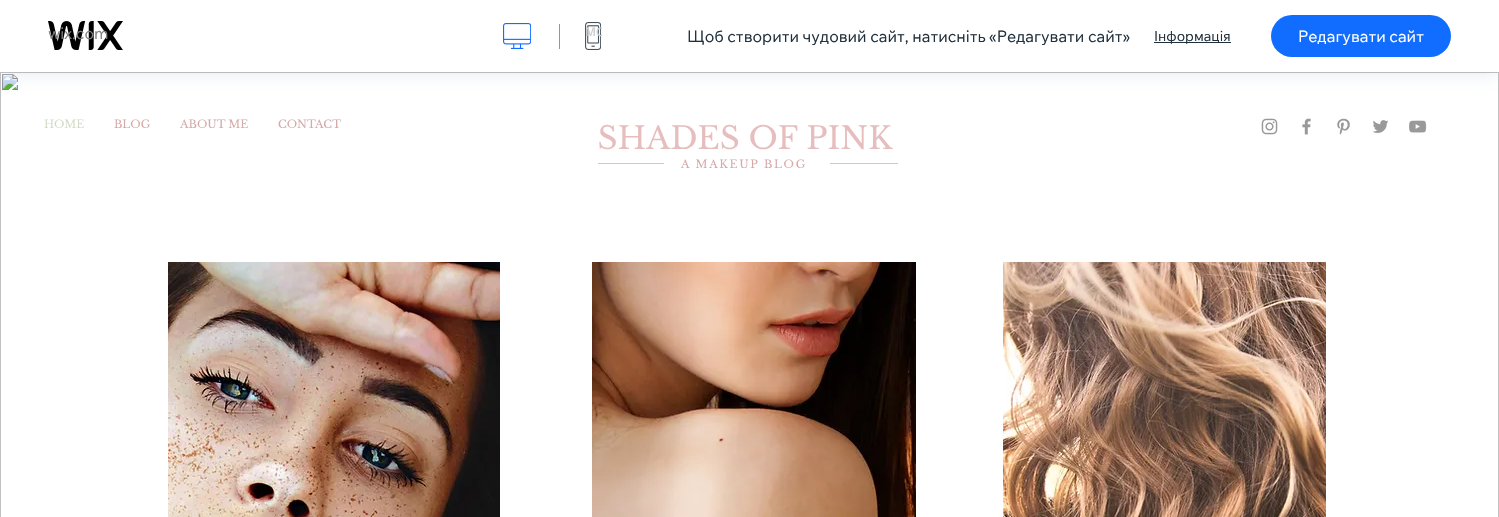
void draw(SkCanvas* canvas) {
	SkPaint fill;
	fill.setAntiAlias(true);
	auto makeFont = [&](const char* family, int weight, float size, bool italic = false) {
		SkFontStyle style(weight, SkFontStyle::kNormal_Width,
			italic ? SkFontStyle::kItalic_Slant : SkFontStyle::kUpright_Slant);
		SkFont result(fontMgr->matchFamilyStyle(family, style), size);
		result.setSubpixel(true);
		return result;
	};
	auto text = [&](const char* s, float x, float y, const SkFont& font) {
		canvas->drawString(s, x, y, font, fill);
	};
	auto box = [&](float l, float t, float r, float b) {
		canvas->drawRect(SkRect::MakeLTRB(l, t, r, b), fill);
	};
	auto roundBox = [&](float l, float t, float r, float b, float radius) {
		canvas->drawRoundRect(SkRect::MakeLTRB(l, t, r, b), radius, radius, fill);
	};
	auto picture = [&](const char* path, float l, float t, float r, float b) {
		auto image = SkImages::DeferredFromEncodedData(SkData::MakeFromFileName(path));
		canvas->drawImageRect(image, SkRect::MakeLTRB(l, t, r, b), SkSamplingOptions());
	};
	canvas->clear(0xFFFFFFFF);
	picture("image3.png", 0, 72, 1499, 517);
	fill.setColor(0x3381A2B6);
	fill.setMaskFilter(SkMaskFilter::MakeBlur(kNormal_SkBlurStyle, 9));
	canvas->drawRect(SkRect::MakeLTRB(0, 2, 1499, 74), fill);
	fill.setMaskFilter(nullptr);
	fill.setColor(0xFFFFFFFF);
	box(0, 0, 1499, 72);
	picture("image0.png", 48, 21, 123, 50);
	picture("image1.png", 503, 23, 531, 49);
	fill.setColor(0xFF90989E);
	box(559, 24, 560, 49);
	picture("image2.png", 585, 22, 601, 50);
	fill.setColor(0xFF20303C);
	box(1154, 42, 1231, 43);
	fill.setColor(0xFF116DFF);
	roundBox(1271, 15, 1451, 57, 21);
	auto font1 = makeFont("Wix Madefor Text", 400, 16);
	fill.setColor(0xFF808080);
	text("wix.com", 48, 39, font1);
	canvas->save();
	canvas->clipRect(SkRect::MakeLTRB(585, 22, 602, 50));
	auto font2 = makeFont("Liberation Sans", 400, 16);
	fill.setColor(0xFFCBCFD2);
	text("мо", 585, 36, font2);
	canvas->restore();
	fill.setColor(0xFF20303C);
	text("Щоб створити чудовий сайт, натисніть «Редагувати сайт»", 687, 42, font1);
	auto font3 = makeFont("Wix Madefor Text", 400, 14);
	text("Інформація", 1154, 41, font3);
	fill.setColor(0xFFFFFFFF);
	text("Редагувати сайт", 1298, 42, font1);
}
